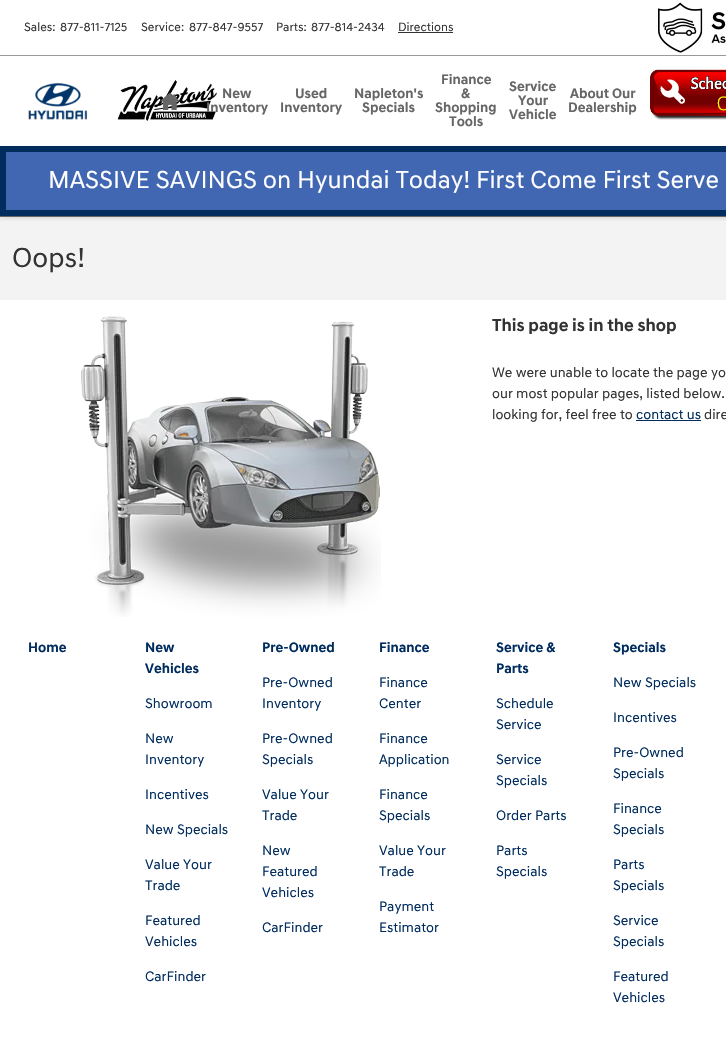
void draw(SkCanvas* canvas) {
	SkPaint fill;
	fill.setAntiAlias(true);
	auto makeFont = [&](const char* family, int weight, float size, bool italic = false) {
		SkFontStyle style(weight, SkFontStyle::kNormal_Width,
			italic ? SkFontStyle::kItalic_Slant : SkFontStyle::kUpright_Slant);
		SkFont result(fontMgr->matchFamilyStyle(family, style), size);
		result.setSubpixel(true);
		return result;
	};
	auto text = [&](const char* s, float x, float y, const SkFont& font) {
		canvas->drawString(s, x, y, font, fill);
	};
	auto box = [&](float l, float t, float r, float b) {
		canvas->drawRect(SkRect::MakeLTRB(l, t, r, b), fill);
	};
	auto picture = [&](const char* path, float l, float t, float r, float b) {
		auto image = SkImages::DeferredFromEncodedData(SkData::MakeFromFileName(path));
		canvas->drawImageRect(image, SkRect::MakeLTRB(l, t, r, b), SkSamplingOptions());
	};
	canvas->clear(0xFFFFFFFF);
	fill.setColor(0xFFF3F3F3);
	box(0, 217, 726, 300);
	canvas->save();
	canvas->clipRect(SkRect::MakeLTRB(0, 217, 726, 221));
	fill.setColor(0x2E000000);
	fill.setMaskFilter(SkMaskFilter::MakeBlur(kNormal_SkBlurStyle, 3));
	canvas->drawRect(SkRect::MakeLTRB(0, 0, 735, 217), fill);
	fill.setMaskFilter(nullptr);
	canvas->restore();
	fill.setColor(0xFF666666);
	box(0, 216, 726, 217);
	fill.setColor(0xFF999999);
	box(0, 55, 726, 56);
	fill.setColor(0xFF333333);
	box(398, 32, 453, 33);
	picture("image0.png", 658, 2, 726, 53);
	picture("image1.png", 28, 82, 88, 120);
	picture("image2.png", 117, 80, 217, 121);
	picture("image3.png", 160, 92, 180, 110);
	picture("image4.png", 650, 69, 726, 120);
	fill.setColor(0xFF002C5E);
	box(0, 146, 726, 216);
	fill.setColor(0xFF4267B2);
	box(6, 152, 726, 210);
	picture("image5.png", 81, 316, 381, 617);
	fill.setColor(0xFF002C5E);
	box(636, 420, 701, 421);
	auto font1 = makeFont("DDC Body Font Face", 400, 12.25f);
	fill.setColor(0xFF333333);
	text("Sales:", 24, 31, font1);
	text("877-811-7125", 60, 31, font1);
	text("Service:", 141, 31, font1);
	text("877-847-9557", 189, 31, font1);
	text("Parts:", 276, 31, font1);
	text("877-814-2434", 311, 31, font1);
	text("Directions", 398, 31, font1);
	auto font2 = makeFont("DDC Body Font Face", 700, 14);
	fill.setColor(0xFF666666);
	text("New", 222, 98, font2);
	text("Inventory", 206, 112, font2);
	text("Used", 295, 98, font2);
	text("Inventory", 280, 112, font2);
	text("Napleton's", 354, 98, font2);
	text("Specials", 362, 112, font2);
	text("Finance", 441, 84, font2);
	text("&", 461, 98, font2);
	text("Shopping", 435, 112, font2);
	text("Tools", 449, 126, font2);
	text("Service", 509, 91, font2);
	text("Your", 518, 105, font2);
	text("Vehicle", 509, 119, font2);
	text("About Our", 570, 98, font2);
	text("Dealership", 568, 112, font2);
	auto font3 = makeFont("DDC Body Font Face", 400, 25);
	fill.setColor(0xFFFFFFFF);
	text("MASSIVE SAVINGS on Hyundai Today! First Come First Serve", 48, 188, font3);
	auto font4 = makeFont("DDC Body Font Face", 400, 28);
	fill.setColor(0xFF333333);
	text("Oops!", 12, 267, font4);
	auto font5 = makeFont("DDC Body Font Face", 700, 17.5f);
	text("This page is in the shop", 492, 331, font5);
	auto font6 = makeFont("DDC Body Font Face", 400, 14);
	text("We were unable to locate the page yo", 492, 377, font6);
	text("our most popular pages, listed below.", 492, 398, font6);
	text("looking for, feel free to", 492, 419, font6);
	fill.setColor(0xFF002C5E);
	text("contact us", 636, 419, font6);
	fill.setColor(0xFF333333);
	text("dire", 704, 419, font6);
	fill.setColor(0xFF002C5E);
	text("Home", 28, 652, font2);
	text("New", 145, 652, font2);
	text("Vehicles", 145, 673, font2);
	text("Showroom", 145, 708, font6);
	text("New", 145, 743, font6);
	text("Inventory", 145, 764, font6);
	text("Incentives", 145, 799, font6);
	text("New Specials", 145, 834, font6);
	text("Value Your", 145, 869, font6);
	text("Trade", 145, 890, font6);
	text("Featured", 145, 925, font6);
	text("Vehicles", 145, 946, font6);
	text("CarFinder", 145, 981, font6);
	text("Pre-Owned", 262, 652, font2);
	text("Pre-Owned", 262, 687, font6);
	text("Inventory", 262, 708, font6);
	text("Pre-Owned", 262, 743, font6);
	text("Specials", 262, 764, font6);
	text("Value Your", 262, 799, font6);
	text("Trade", 262, 820, font6);
	text("New", 262, 855, font6);
	text("Featured", 262, 876, font6);
	text("Vehicles", 262, 897, font6);
	text("CarFinder", 262, 932, font6);
	text("Finance", 379, 652, font2);
	text("Finance", 379, 687, font6);
	text("Center", 379, 708, font6);
	text("Finance", 379, 743, font6);
	text("Application", 379, 764, font6);
	text("Finance", 379, 799, font6);
	text("Specials", 379, 820, font6);
	text("Value Your", 379, 855, font6);
	text("Trade", 379, 876, font6);
	text("Payment", 379, 911, font6);
	text("Estimator", 379, 932, font6);
	text("Service &", 496, 652, font2);
	text("Parts", 496, 673, font2);
	text("Schedule", 496, 708, font6);
	text("Service", 496, 729, font6);
	text("Service", 496, 764, font6);
	text("Specials", 496, 785, font6);
	text("Order Parts", 496, 820, font6);
	text("Parts", 496, 855, font6);
	text("Specials", 496, 876, font6);
	text("Specials", 613, 652, font2);
	text("New Specials", 613, 687, font6);
	text("Incentives", 613, 722, font6);
	text("Pre-Owned", 613, 757, font6);
	text("Specials", 613, 778, font6);
	text("Finance", 613, 813, font6);
	text("Specials", 613, 834, font6);
	text("Parts", 613, 869, font6);
	text("Specials", 613, 890, font6);
	text("Service", 613, 925, font6);
	text("Specials", 613, 946, font6);
	text("Featured", 613, 981, font6);
	text("Vehicles", 613, 1002, font6);
}
